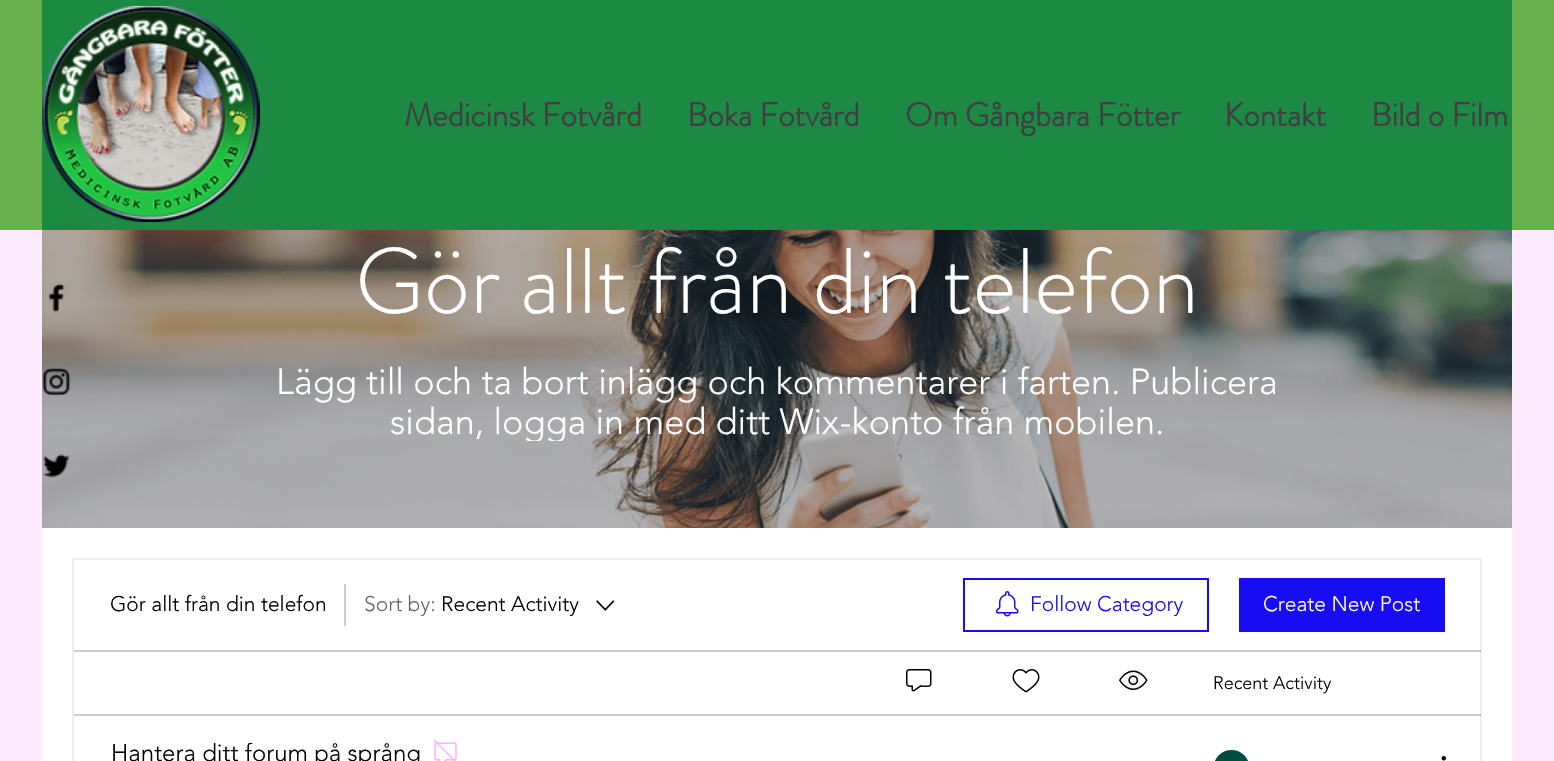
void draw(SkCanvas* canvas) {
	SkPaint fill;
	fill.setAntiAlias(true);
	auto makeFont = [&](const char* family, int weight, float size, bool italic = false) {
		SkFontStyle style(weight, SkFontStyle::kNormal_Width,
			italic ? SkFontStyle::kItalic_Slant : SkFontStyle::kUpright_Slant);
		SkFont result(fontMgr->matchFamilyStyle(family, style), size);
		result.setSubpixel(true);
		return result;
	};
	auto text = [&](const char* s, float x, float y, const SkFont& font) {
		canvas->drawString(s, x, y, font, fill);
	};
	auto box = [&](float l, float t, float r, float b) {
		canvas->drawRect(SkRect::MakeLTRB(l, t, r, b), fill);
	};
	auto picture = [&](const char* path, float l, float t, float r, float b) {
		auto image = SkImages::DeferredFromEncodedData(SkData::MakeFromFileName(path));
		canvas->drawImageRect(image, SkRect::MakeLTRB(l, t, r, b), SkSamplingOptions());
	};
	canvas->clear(0xFFFFEBFF);
	fill.setColor(0xFF68B04D);
	box(0, 0, 1554, 230);
	fill.setColor(0xFF1C8A43);
	box(42, 0, 1512, 230);
	picture("image0.png", 42, 6, 260, 222);
	fill.setColor(0xFFFFFFFF);
	box(42, 282, 1512, 761);
	picture("image4.png", 42, 230, 1512, 528);
	picture("image1.png", 48, 283, 65, 313);
	picture("image2.png", 42, 367, 71, 396);
	picture("image3.png", 43, 454, 70, 478);
	fill.setStyle(SkPaint::kStroke_Style);
	fill.setStrokeWidth(2);
	fill.setColor(0xFFEEECEC);
	canvas->drawRect(SkRect::MakeLTRB(73, 559, 1481, 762), fill);
	fill.setStyle(SkPaint::kFill_Style);
	fill.setColor(0xFFCCCCCC);
	box(344, 584, 346, 626);
	picture("image5.png", 596, 600, 615, 611);
	fill.setStyle(SkPaint::kStroke_Style);
	fill.setColor(0xFF170DF2);
	canvas->drawRect(SkRect::MakeLTRB(964, 579, 1208, 631), fill);
	picture("image6.png", 996, 591, 1019, 617);
	fill.setStyle(SkPaint::kFill_Style);
	box(1239, 578, 1445, 632);
	fill.setColor(0x33000000);
	box(74, 650, 1481, 652);
	picture("image7.png", 906, 669, 932, 692);
	picture("image8.png", 1012, 669, 1040, 693);
	picture("image9.png", 1119, 670, 1148, 690);
	box(74, 714, 1481, 716);
	picture("image10.png", 434, 740, 457, 761);
	picture("image11.png", 1215, 750, 1248, 761);
	picture("image12.png", 1441, 756, 1446, 761);
	auto font1 = makeFont("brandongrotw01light", 700, 33);
	fill.setColor(0xFF404041);
	text("Medicinsk Fotvård", 404, 126, font1);
	text("Boka Fotvård", 687, 126, font1);
	text("Om Gångbara Fötter", 905, 126, font1);
	text("Kontakt", 1224, 126, font1);
	text("Bild o Film", 1371, 126, font1);
	auto font2 = makeFont("brandongrotw01light", 300, 93);
	fill.setColor(0xFFFFFFFF);
	text("Gör allt från din telefon", 355, 313, font2);
	auto font3 = makeFont("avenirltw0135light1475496", 300, 36);
	text("Lägg till och ta bort inlägg och kommentarer i farten. Publicera", 276, 394, font3);
	canvas->save();
	canvas->clipRect(SkRect::MakeLTRB(267, 363, 1287, 441));
	text("sidan, logga in med ditt Wix-konto från mobilen.", 390, 434, font3);
	canvas->restore();
	auto font4 = makeFont("avenirltw0135light1475496", 300, 21);
	fill.setColor(0xFF000000);
	text("Gör allt från din telefon", 110, 611, font4);
	fill.setColor(0xFF666666);
	text("Sort by:", 364, 611, font4);
	fill.setColor(0xFF000000);
	text("Recent Activity", 441, 611, font4);
	fill.setColor(0xFF170DF2);
	text("Follow Category", 1030, 611, font4);
	fill.setColor(0xFFFFFFFF);
	text("Create New Post", 1263, 611, font4);
	auto font5 = makeFont("avenirltw0135light1475496", 300, 18);
	fill.setColor(0xFF000000);
	text("Recent Activity", 1213, 689, font5);
	canvas->save();
	canvas->clipRect(SkRect::MakeLTRB(111, 743, 422, 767));
	auto font6 = makeFont("avenirltw0135light1475496", 300, 24);
	text("Hantera ditt forum på språng", 111, 761, font6);
	canvas->restore();
}
